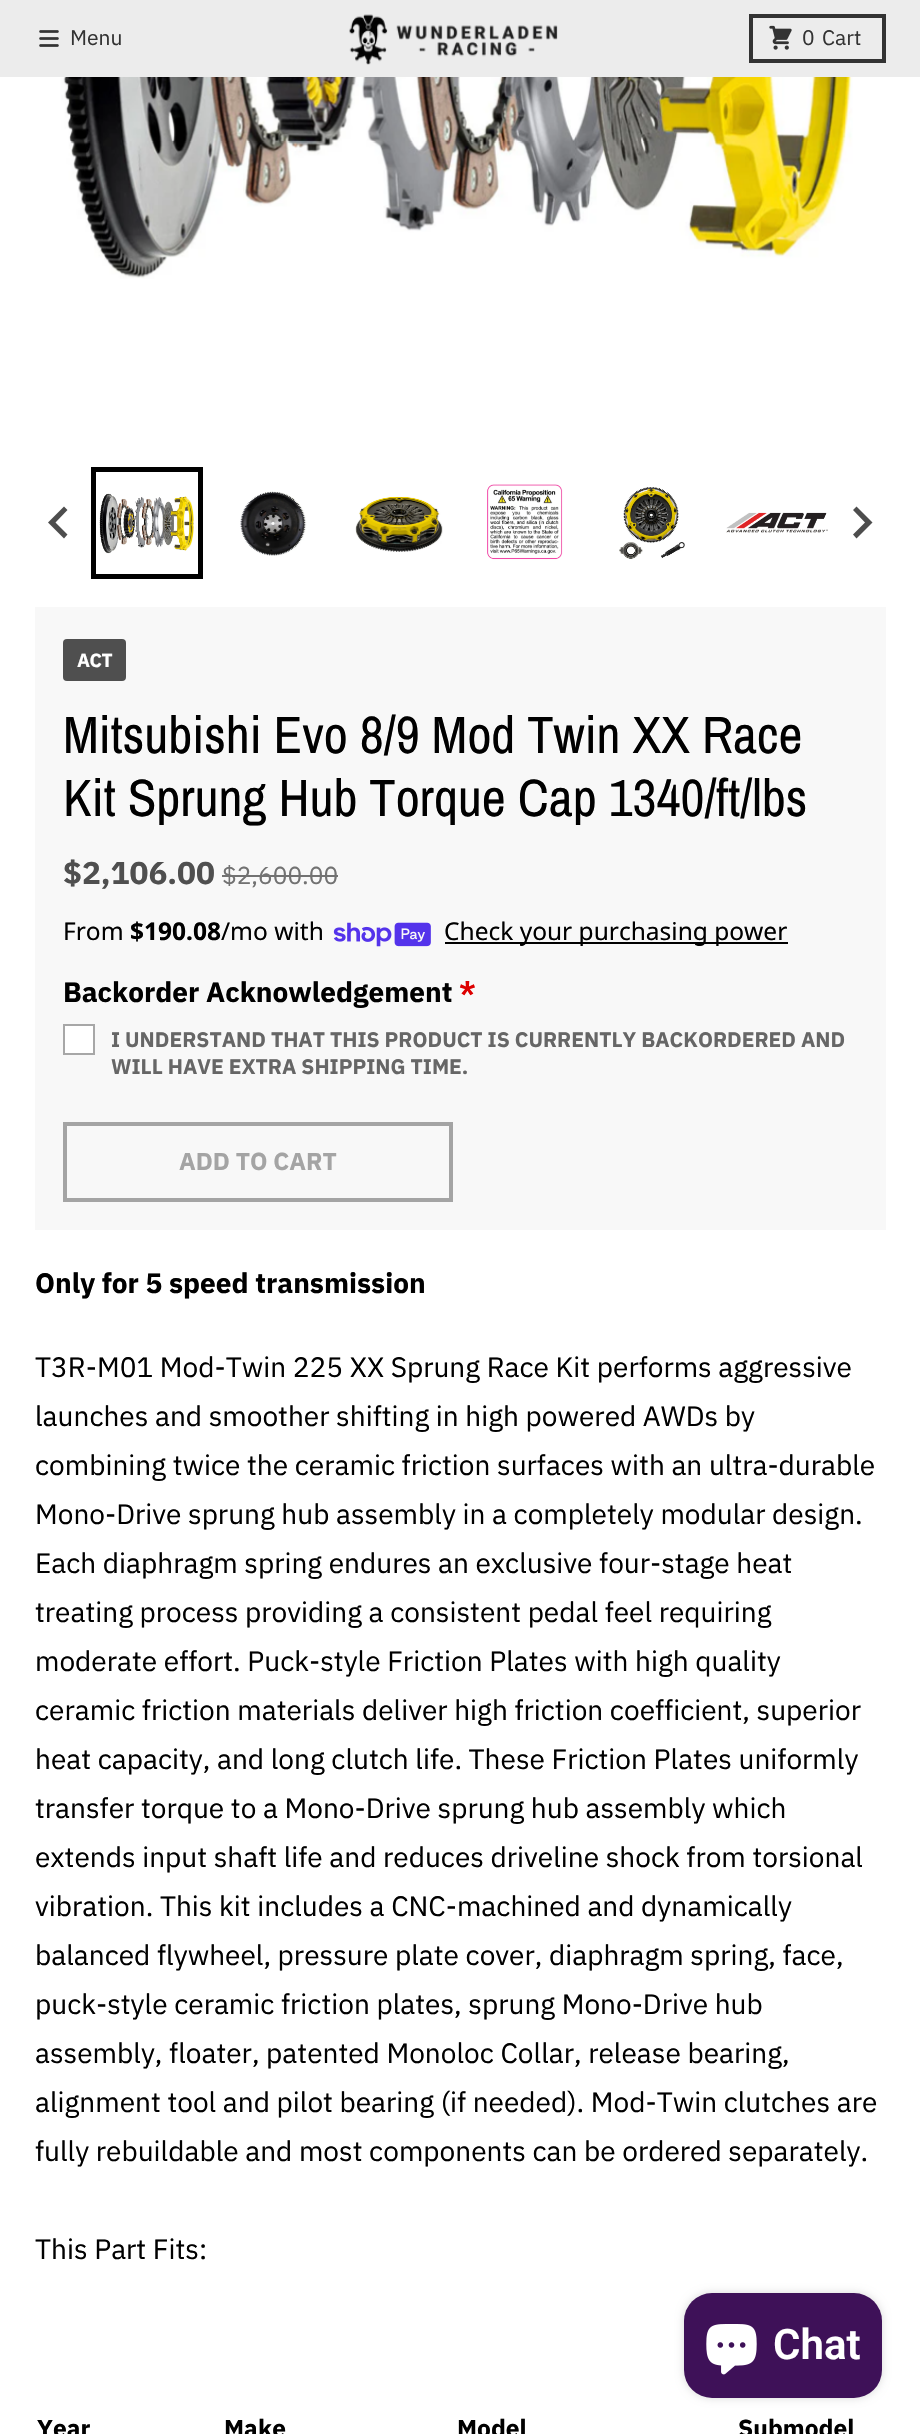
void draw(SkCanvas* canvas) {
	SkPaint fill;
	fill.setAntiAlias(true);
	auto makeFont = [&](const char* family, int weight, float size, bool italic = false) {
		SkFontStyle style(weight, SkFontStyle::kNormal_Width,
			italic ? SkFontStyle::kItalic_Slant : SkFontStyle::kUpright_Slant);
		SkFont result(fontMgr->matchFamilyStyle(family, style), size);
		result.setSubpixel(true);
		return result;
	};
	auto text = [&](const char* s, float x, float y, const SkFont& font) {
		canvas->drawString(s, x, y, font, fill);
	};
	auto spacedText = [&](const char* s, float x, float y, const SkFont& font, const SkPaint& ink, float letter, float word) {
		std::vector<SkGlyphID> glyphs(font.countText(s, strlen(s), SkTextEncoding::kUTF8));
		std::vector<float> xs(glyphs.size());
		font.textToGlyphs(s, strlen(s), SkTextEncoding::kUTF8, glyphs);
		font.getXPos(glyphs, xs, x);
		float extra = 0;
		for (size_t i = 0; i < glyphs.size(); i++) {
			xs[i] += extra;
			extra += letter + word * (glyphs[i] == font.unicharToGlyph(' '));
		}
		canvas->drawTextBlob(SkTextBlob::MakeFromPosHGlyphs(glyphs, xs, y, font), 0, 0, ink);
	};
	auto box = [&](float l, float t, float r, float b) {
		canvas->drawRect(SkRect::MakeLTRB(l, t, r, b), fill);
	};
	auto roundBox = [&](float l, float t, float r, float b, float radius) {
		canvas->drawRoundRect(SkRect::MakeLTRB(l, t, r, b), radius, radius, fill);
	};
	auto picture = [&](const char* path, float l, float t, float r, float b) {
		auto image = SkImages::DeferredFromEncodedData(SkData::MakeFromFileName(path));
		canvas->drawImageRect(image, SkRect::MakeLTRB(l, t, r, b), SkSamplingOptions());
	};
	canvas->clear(0xFFFFFFFF);
	fill.setColor(0xFFECECEC);
	box(0, 0, 920, 77);
	picture("image0.png", 39, 30, 59, 47);
	picture("image1.png", 349, 14, 558, 65);
	fill.setStyle(SkPaint::kStroke_Style);
	fill.setStrokeWidth(4);
	fill.setColor(0xFF333333);
	canvas->drawRect(SkRect::MakeLTRB(751, 16, 884, 61), fill);
	picture("image2.png", 769, 25, 792, 50);
	picture("image3.png", 61, 77, 853, 279);
	fill.setStrokeWidth(5);
	fill.setColor(0xFF000000);
	canvas->drawRect(SkRect::MakeLTRB(93.5f, 469.5f, 200.5f, 576.5f), fill);
	picture("image4.png", 99, 493, 194, 554);
	picture("image5.png", 240, 491, 307, 556);
	picture("image6.png", 355, 496, 443, 552);
	picture("image7.png", 487, 484, 563, 560);
	picture("image8.png", 619, 487, 685, 559);
	picture("image9.png", 726, 512, 828, 533);
	fill.setStyle(SkPaint::kFill_Style);
	fill.setColor(0xFF4D4D4D);
	canvas->drawPath(SkPathBuilder().moveTo(64, 506.5f).lineTo(67.5f, 510).lineTo(55.5f, 522.5f).lineTo(67.5f, 534.5f).lineTo(64, 538.5f).lineTo(48, 522.5f).close().detach(), fill);
	canvas->drawPath(SkPathBuilder().moveTo(856.5f, 506.5f).lineTo(853, 510).lineTo(865, 522.5f).lineTo(853, 534.5f).lineTo(856.5f, 538.5f).lineTo(872.5f, 522.5f).close().detach(), fill);
	fill.setColor(0xFFF8F8F8);
	box(35, 607, 886, 1230);
	fill.setColor(0xFF4F4F4F);
	roundBox(63, 639, 126, 681, 4);
	fill.setColor(0xFF727272);
	box(222, 875, 338, 877);
	picture("image10.png", 333, 922, 431, 947);
	fill.setColor(0xFF000000);
	box(445, 942, 788, 944);
	fill.setColor(0xFFFFFFFF);
	canvas->drawRect(SkRect::MakeLTRB(64, 1025, 94, 1054), fill);
	fill.setStyle(SkPaint::kStroke_Style);
	fill.setStrokeWidth(2);
	fill.setColor(0xFFA7A7A7);
	canvas->drawRect(SkRect::MakeLTRB(64, 1025, 94, 1054), fill);
	fill.setStrokeWidth(4);
	fill.setColor(0xFFA4A4A4);
	canvas->drawRect(SkRect::MakeLTRB(65, 1124, 451, 1200), fill);
	fill.setStyle(SkPaint::kFill_Style);
	fill.setColor(0x26000000);
	fill.setMaskFilter(SkMaskFilter::MakeBlur(kNormal_SkBlurStyle, 4.5f));
	canvas->drawRoundRect(SkRect::MakeLTRB(684, 2293, 882, 2398), 28, 28, fill);
	fill.setMaskFilter(nullptr);
	fill.setColor(0xFF3E1158);
	roundBox(684, 2293, 882, 2398, 28);
	picture("image11.png", 706, 2324, 757, 2375);
	auto font1 = makeFont("IBM Plex Sans", 400, 21);
	fill.setColor(0xFF333333);
	text("Menu", 70, 45, font1);
	text("0", 802, 45, font1);
	text("Cart", 822, 45, font1);
	auto font2 = makeFont("IBM Plex Sans", 700, 19);
	fill.setColor(0xFFFFFFFF);
	spacedText("ACT", 77, 667, font2, fill, -0.5f, 0);
	auto font3 = makeFont("Archivo Narrow", 400, 52.5f);
	fill.setColor(0xFF000000);
	text("Mitsubishi Evo 8/9 Mod Twin XX Race", 63, 753, font3);
	text("Kit Sprung Hub Torque Cap 1340/ft/lbs", 63, 816, font3);
	auto font4 = makeFont("IBM Plex Sans", 700, 31.5f);
	fill.setColor(0xFF4F4F4F);
	text("$2,106.00", 63, 884, font4);
	auto font5 = makeFont("IBM Plex Sans", 400, 24.5f);
	fill.setColor(0xFF727272);
	text("$2,600.00", 222, 884, font5);
	auto font6 = makeFont("Noto Sans", 400, 24.5f);
	fill.setColor(0xFF000000);
	text("From", 63, 940, font6);
	auto font7 = makeFont("Noto Sans", 700, 24.5f);
	text("$190.08", 130, 940, font7);
	text("/mo with", 221, 940, font6);
	text("Check your purchasing power", 444, 940, font6);
	auto font8 = makeFont("IBM Plex Sans", 700, 28);
	text("Backorder Acknowledgement", 63, 1002, font8);
	fill.setColor(0xFFDD0000);
	text("*", 459, 1002, font8);
	auto font9 = makeFont("IBM Plex Sans", 700, 21);
	fill.setColor(0xFF666666);
	text("I UNDERSTAND THAT THIS PRODUCT IS CURRENTLY BACKORDERED AND", 111, 1047, font9);
	text("WILL HAVE EXTRA SHIPPING TIME.", 111, 1074, font9);
	auto font10 = makeFont("IBM Plex Sans", 700, 24.5f);
	fill.setColor(0xFFA4A4A4);
	text("ADD TO CART", 179, 1170, font10);
	fill.setColor(0xFF000000);
	text("Only for 5 speed transmission", 35, 1293, font8);
	auto font11 = makeFont("IBM Plex Sans", 400, 28);
	text("T3R-M01 Mod-Twin 225 XX Sprung Race Kit performs aggressive", 35, 1377, font11);
	text("launches and smoother shifting in high powered AWDs by", 35, 1426, font11);
	text("combining twice the ceramic friction surfaces with an ultra-durable", 35, 1475, font11);
	text("Mono-Drive sprung hub assembly in a completely modular design.", 35, 1524, font11);
	text("Each diaphragm spring endures an exclusive four-stage heat", 35, 1573, font11);
	text("treating process providing a consistent pedal feel requiring", 35, 1622, font11);
	text("moderate effort. Puck-style Friction Plates with high quality", 35, 1671, font11);
	text("ceramic friction materials deliver high friction coefficient, superior", 35, 1720, font11);
	text("heat capacity, and long clutch life. These Friction Plates uniformly", 35, 1769, font11);
	text("transfer torque to a Mono-Drive sprung hub assembly which", 35, 1818, font11);
	text("extends input shaft life and reduces driveline shock from torsional", 35, 1867, font11);
	text("vibration. This kit includes a CNC-machined and dynamically", 35, 1916, font11);
	text("balanced flywheel, pressure plate cover, diaphragm spring, face,", 35, 1965, font11);
	text("puck-style ceramic friction plates, sprung Mono-Drive hub", 35, 2014, font11);
	text("assembly, floater, patented Monoloc Collar, release bearing,", 35, 2063, font11);
	text("alignment tool and pilot bearing (if needed). Mod-Twin clutches are", 35, 2112, font11);
	text("fully rebuildable and most components can be ordered separately.", 35, 2161, font11);
	text("This Part Fits:", 35, 2259, font11);
	text("Year", 37, 2437, font10);
	text("Make", 224, 2437, font10);
	text("Model", 457, 2437, font10);
	text("Submodel", 738, 2437, font10);
	auto font12 = makeFont("Roboto", 600, 42);
	fill.setColor(0xFFFFFFFF);
	text("Chat", 773, 2359, font12);
}
